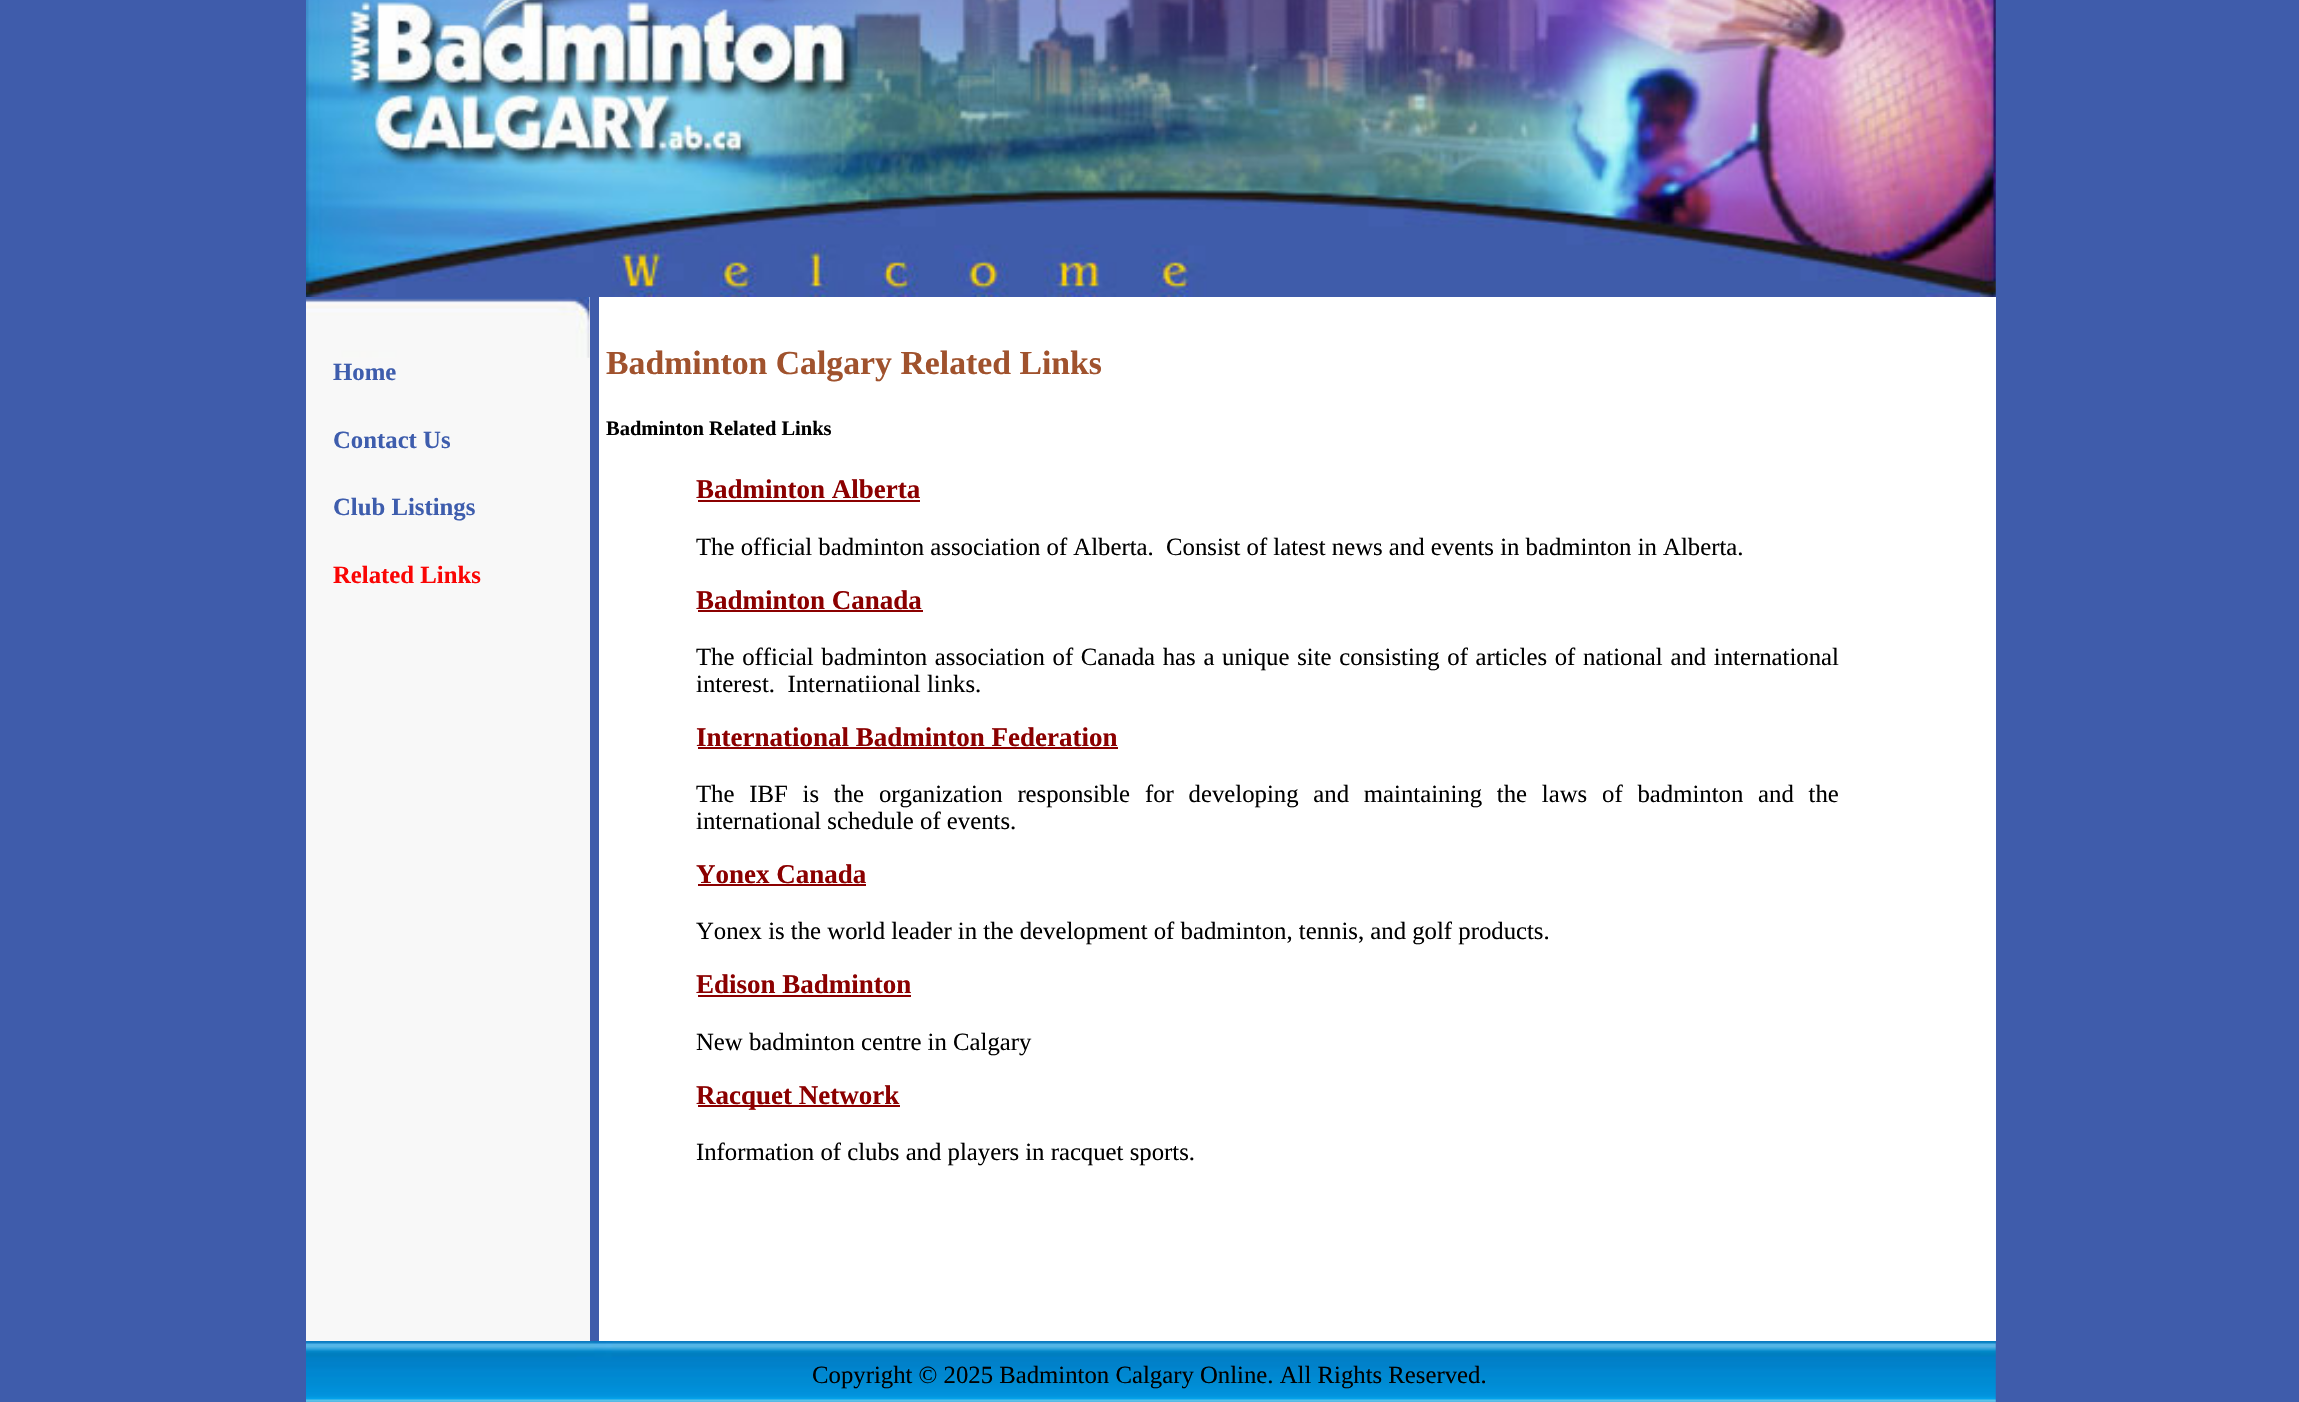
void draw(SkCanvas* canvas) {
	SkPaint fill;
	fill.setAntiAlias(true);
	auto makeFont = [&](const char* family, int weight, float size, bool italic = false) {
		SkFontStyle style(weight, SkFontStyle::kNormal_Width,
			italic ? SkFontStyle::kItalic_Slant : SkFontStyle::kUpright_Slant);
		SkFont result(fontMgr->matchFamilyStyle(family, style), size);
		result.setSubpixel(true);
		return result;
	};
	auto text = [&](const char* s, float x, float y, const SkFont& font) {
		canvas->drawString(s, x, y, font, fill);
	};
	auto spacedText = [&](const char* s, float x, float y, const SkFont& font, const SkPaint& ink, float letter, float word) {
		std::vector<SkGlyphID> glyphs(font.countText(s, strlen(s), SkTextEncoding::kUTF8));
		std::vector<float> xs(glyphs.size());
		font.textToGlyphs(s, strlen(s), SkTextEncoding::kUTF8, glyphs);
		font.getXPos(glyphs, xs, x);
		float extra = 0;
		for (size_t i = 0; i < glyphs.size(); i++) {
			xs[i] += extra;
			extra += letter + word * (glyphs[i] == font.unicharToGlyph(' '));
		}
		canvas->drawTextBlob(SkTextBlob::MakeFromPosHGlyphs(glyphs, xs, y, font), 0, 0, ink);
	};
	auto box = [&](float l, float t, float r, float b) {
		canvas->drawRect(SkRect::MakeLTRB(l, t, r, b), fill);
	};
	auto picture = [&](const char* path, float l, float t, float r, float b) {
		auto image = SkImages::DeferredFromEncodedData(SkData::MakeFromFileName(path));
		canvas->drawImageRect(image, SkRect::MakeLTRB(l, t, r, b), SkSamplingOptions());
	};
	canvas->clear(0xFF3F5CAB);
	picture("image0.png", 306, 0, 1996, 297);
	fill.setColor(0xFFF8F8F8);
	box(306, 297, 590, 1341);
	picture("image1.png", 306, 297, 590, 358);
	fill.setColor(0xFFFFFFFF);
	box(599, 297, 1996, 1341);
	fill.setColor(0xFF8B0000);
	box(698, 500, 920, 502);
	box(698, 610, 923, 612);
	box(698, 747, 1118, 749);
	box(698, 884, 866, 886);
	box(698, 995, 911, 997);
	box(698, 1105, 900, 1107);
	picture("image2.png", 306, 1341, 1996, 1402);
	auto font1 = makeFont("Liberation Serif", 700, 24.75f);
	fill.setColor(0xFF3E5DAD);
	text("Home", 333, 380, font1);
	text("Contact Us", 333, 448, font1);
	text("Club Listings", 333, 515, font1);
	fill.setColor(0xFFFA0504);
	text("Related Links", 333, 583, font1);
	auto font2 = makeFont("Liberation Serif", 700, 33.75f);
	fill.setColor(0xFFA0522D);
	text("Badminton Calgary Related Links", 606, 374, font2);
	auto font3 = makeFont("Liberation Serif", 700, 20.5f);
	fill.setColor(0xFF000000);
	text("Badminton Related Links", 606, 435, font3);
	auto font4 = makeFont("Liberation Serif", 700, 27);
	fill.setColor(0xFF8B0000);
	text("Badminton Alberta", 696, 498, font4);
	auto font5 = makeFont("Liberation Serif", 400, 24.75f);
	fill.setColor(0xFF000000);
	text("The official badminton association of Alberta.  Consist of latest news and events in badminton in Alberta.", 696, 555, font5);
	fill.setColor(0xFF8B0000);
	text("Badminton Canada", 696, 609, font4);
	fill.setColor(0xFF000000);
	spacedText("The official badminton association of Canada has a unique site consisting of articles of national and international", 696, 665, font5, fill, 0, 1.5f);
	text("interest.  Internatiional links.", 696, 692, font5);
	fill.setColor(0xFF8B0000);
	text("International Badminton Federation", 696, 746, font4);
	fill.setColor(0xFF000000);
	spacedText("The IBF is the organization responsible for developing and maintaining the laws of badminton and the", 696, 802, font5, fill, 0, 8.6f);
	text("international schedule of events.", 696, 829, font5);
	fill.setColor(0xFF8B0000);
	text("Yonex Canada", 696, 883, font4);
	fill.setColor(0xFF000000);
	text("Yonex is the world leader in the development of badminton, tennis, and golf products.", 696, 939, font5);
	fill.setColor(0xFF8B0000);
	text("Edison Badminton", 696, 993, font4);
	fill.setColor(0xFF000000);
	text("New badminton centre in Calgary", 696, 1050, font5);
	fill.setColor(0xFF8B0000);
	text("Racquet Network", 696, 1104, font4);
	fill.setColor(0xFF000000);
	text("Information of clubs and players in racquet sports.", 696, 1160, font5);
	text("Copyright © 2025 Badminton Calgary Online. All Rights Reserved.", 812, 1383, font5);
}
